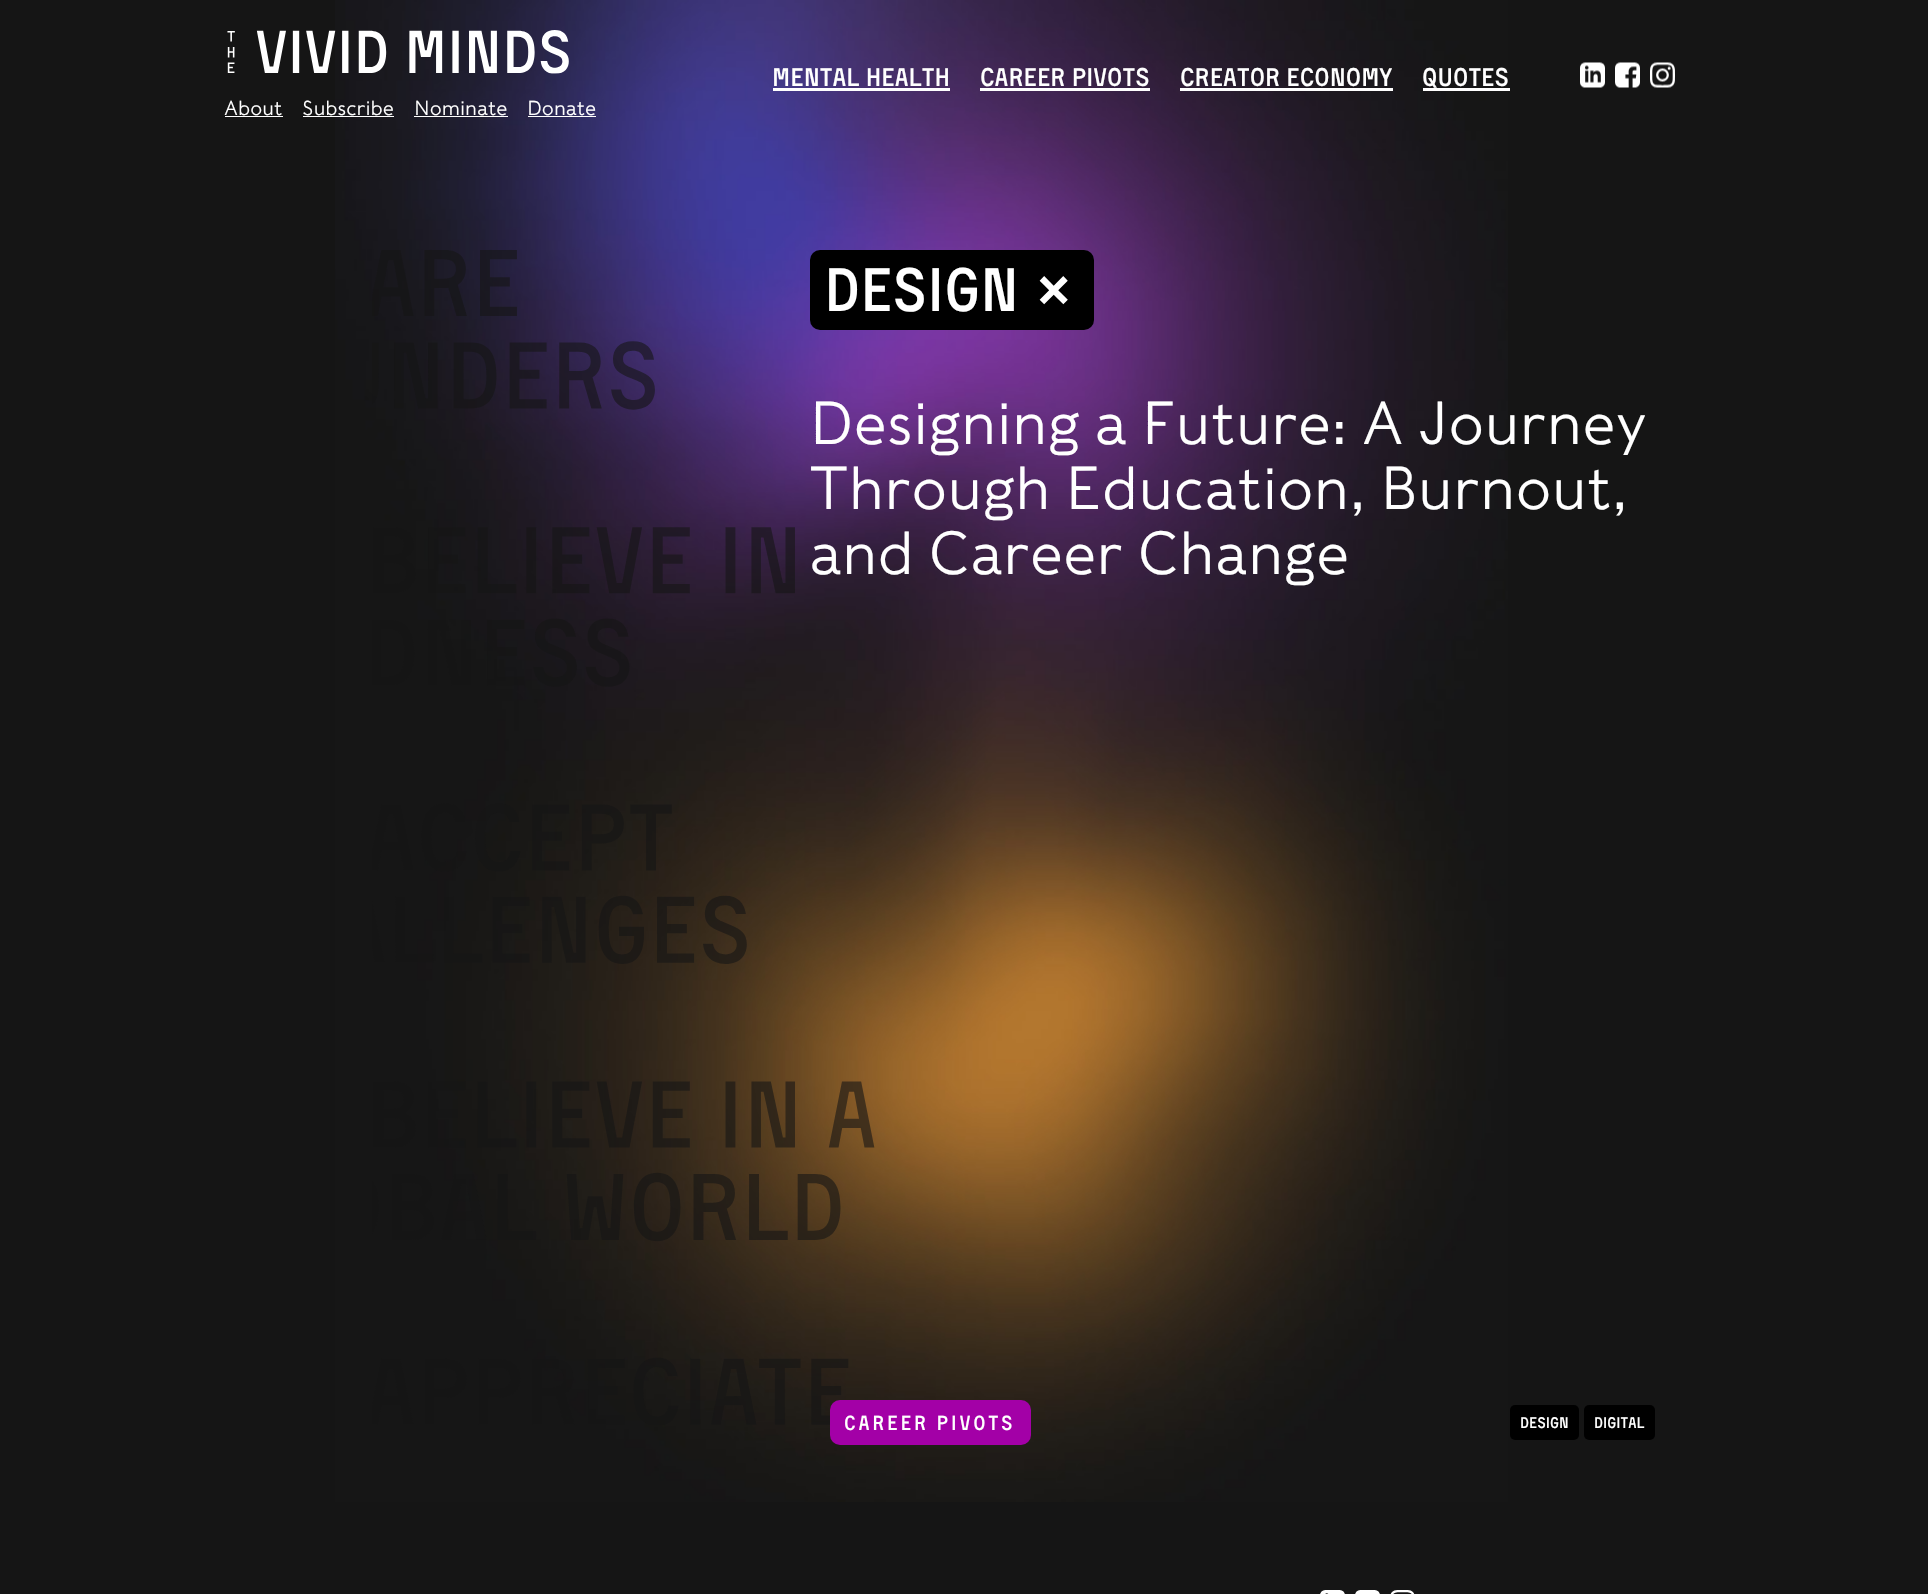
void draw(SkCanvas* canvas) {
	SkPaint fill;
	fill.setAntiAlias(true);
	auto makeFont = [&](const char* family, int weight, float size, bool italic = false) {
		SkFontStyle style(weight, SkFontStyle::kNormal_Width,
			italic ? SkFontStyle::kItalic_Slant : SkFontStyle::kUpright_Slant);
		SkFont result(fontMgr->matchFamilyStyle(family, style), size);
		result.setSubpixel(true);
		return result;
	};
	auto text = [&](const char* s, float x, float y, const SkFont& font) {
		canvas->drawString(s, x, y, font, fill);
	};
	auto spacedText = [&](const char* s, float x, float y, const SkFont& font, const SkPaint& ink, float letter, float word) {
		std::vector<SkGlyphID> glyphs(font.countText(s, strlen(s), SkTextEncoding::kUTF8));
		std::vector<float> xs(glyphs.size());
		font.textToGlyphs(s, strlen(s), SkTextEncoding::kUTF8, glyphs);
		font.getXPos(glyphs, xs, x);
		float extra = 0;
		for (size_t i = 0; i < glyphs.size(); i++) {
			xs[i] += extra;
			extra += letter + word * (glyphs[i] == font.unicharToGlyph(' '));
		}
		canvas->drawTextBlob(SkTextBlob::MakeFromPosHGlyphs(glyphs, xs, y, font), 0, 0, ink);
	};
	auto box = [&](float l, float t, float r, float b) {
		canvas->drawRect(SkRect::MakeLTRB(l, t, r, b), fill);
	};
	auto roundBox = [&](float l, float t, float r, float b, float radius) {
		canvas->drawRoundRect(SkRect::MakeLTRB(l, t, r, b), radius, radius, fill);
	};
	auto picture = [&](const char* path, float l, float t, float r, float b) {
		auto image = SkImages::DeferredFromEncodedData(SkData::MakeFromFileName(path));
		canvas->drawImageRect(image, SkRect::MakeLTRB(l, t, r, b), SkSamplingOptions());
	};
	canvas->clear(0xFF151515);
	picture("image0.png", 335, 0, 1508, 1502);
	fill.setColor(0xFFFFFFFF);
	box(773, 88, 950, 91);
	box(980, 88, 1150, 91);
	box(1180, 88, 1393, 91);
	box(1423, 88, 1510, 91);
	picture("image1.png", 1580, 62, 1605, 88);
	picture("image2.png", 1615, 62, 1640, 88);
	picture("image3.png", 1650, 62, 1675, 88);
	picture("image4.png", 227, 30, 569, 74);
	box(225, 116, 283, 117);
	box(303, 116, 394, 117);
	box(414, 116, 508, 117);
	box(528, 116, 596, 117);
	picture("image5.png", 372, 250, 875, 1425);
	fill.setColor(0xFF000000);
	roundBox(810, 250, 1094, 330, 10);
	picture("image6.png", 1039, 276, 1068, 305);
	fill.setColor(0xFFA300A7);
	roundBox(830, 1400, 1031, 1445, 10);
	fill.setColor(0xFF000000);
	roundBox(1510, 1405, 1579, 1440, 5);
	roundBox(1584, 1405, 1655, 1440, 5);
	picture("image7.png", 1320, 1590, 1345, 1594);
	picture("image8.png", 1355, 1590, 1380, 1594);
	picture("image9.png", 1390, 1590, 1415, 1594);
	auto font1 = makeFont("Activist", 400, 25);
	fill.setColor(0xFFFFFFFF);
	text("Mental Health", 772, 86, font1);
	text("Career Pivots", 980, 86, font1);
	text("Creator Economy", 1180, 86, font1);
	text("Quotes", 1422, 86, font1);
	auto font2 = makeFont("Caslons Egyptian", 300, 20);
	text("About", 224, 115, font2);
	text("Subscribe", 302, 115, font2);
	text("Nominate", 414, 115, font2);
	text("Donate", 527, 115, font2);
	auto font3 = makeFont("Activist", 400, 60);
	text("DESIGN", 824, 311, font3);
	auto font4 = makeFont("Caslons Egyptian", 300, 60);
	text("Designing a Future: A Journey", 809, 444, font4);
	text("Through Education, Burnout,", 809, 509, font4);
	text("and Career Change", 809, 574, font4);
	auto font5 = makeFont("Activist", 400, 20);
	spacedText("CAREER PIVOTS", 844, 1430, font5, fill, 2.75f, 0);
	auto font6 = makeFont("Activist", 400, 15);
	text("design", 1520, 1428, font6);
	text("digital", 1594, 1428, font6);
}
